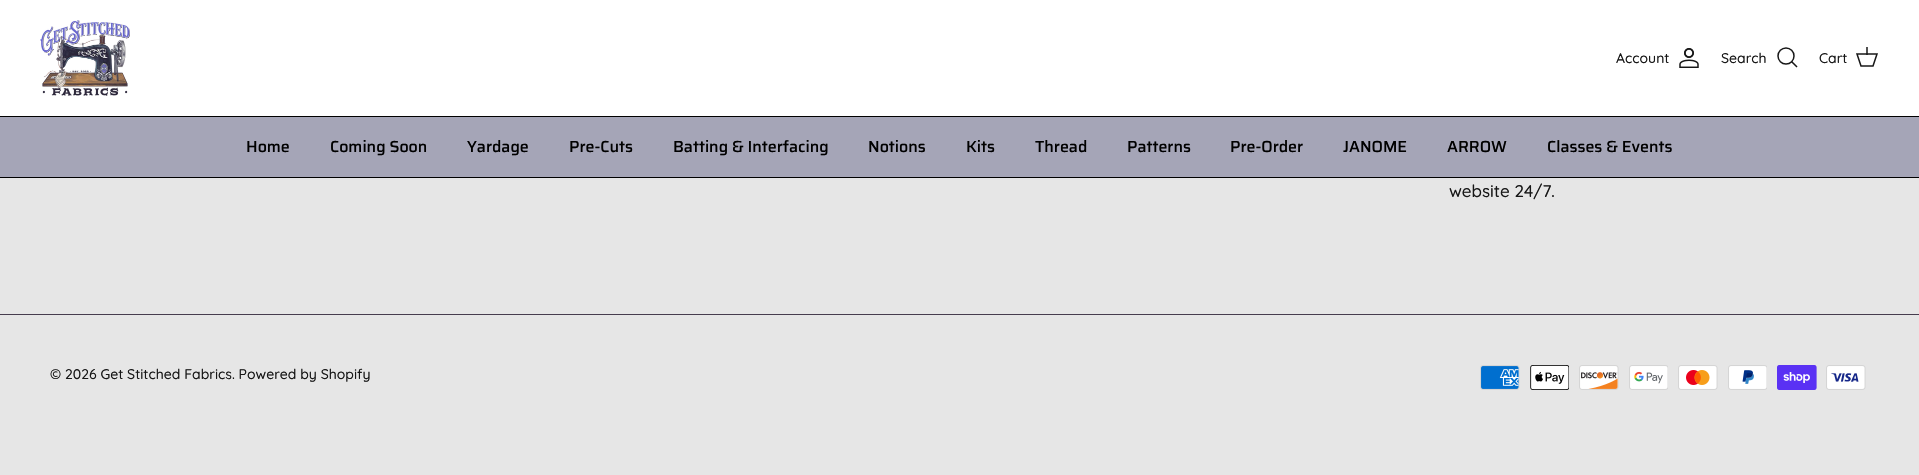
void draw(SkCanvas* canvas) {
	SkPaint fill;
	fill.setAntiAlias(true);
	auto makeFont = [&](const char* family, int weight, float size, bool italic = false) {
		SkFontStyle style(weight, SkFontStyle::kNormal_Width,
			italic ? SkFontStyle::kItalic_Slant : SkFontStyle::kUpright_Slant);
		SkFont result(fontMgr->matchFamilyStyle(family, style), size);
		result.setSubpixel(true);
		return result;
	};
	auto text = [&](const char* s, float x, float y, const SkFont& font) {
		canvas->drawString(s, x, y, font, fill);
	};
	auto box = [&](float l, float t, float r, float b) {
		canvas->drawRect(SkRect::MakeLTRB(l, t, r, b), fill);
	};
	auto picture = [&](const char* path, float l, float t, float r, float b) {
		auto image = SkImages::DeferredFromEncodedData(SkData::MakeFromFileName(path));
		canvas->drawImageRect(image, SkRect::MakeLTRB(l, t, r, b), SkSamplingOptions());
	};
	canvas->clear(0xFFE6E6E6);
	fill.setColor(0xFFFFFFFF);
	box(0, 0, 1919, 116);
	fill.setColor(0xFF000000);
	box(0, 116, 1919, 117);
	picture("image0.png", 40, 20, 130, 96);
	picture("image1.png", 1679, 48, 1699, 68);
	fill.setStyle(SkPaint::kStroke_Style);
	fill.setStrokeWidth(1.5f);
	fill.setColor(0xFF171717);
	canvas->drawCircle(1786, 56, 8, fill);
	fill.setStrokeCap(SkPaint::kSquare_Cap);
	canvas->drawPath(SkPathBuilder().moveTo(1792, 62).lineTo(1796.5f, 66.5f).detach(), fill);
	fill.setStrokeCap(SkPaint::kButt_Cap);
	canvas->drawPath(SkPathBuilder().moveTo(1857, 54).lineTo(1877, 54).lineTo(1873, 66).lineTo(1861, 66).close().detach(), fill);
	fill.setStyle(SkPaint::kFill_Style);
	fill.setColor(0xBF171717);
	box(1866, 47, 1868, 55);
	fill.setColor(0xFF000000);
	box(0, 177, 1919, 178);
	fill.setColor(0xFFA5A5B7);
	box(0, 117, 1919, 177);
	fill.setColor(0xFF463D4E);
	box(0, 314, 1919, 315);
	picture("image2.png", 1480, 365, 1520, 390);
	picture("image3.png", 1530, 365, 1569, 390);
	picture("image4.png", 1579, 365, 1619, 390);
	picture("image5.png", 1629, 365, 1668, 390);
	picture("image6.png", 1678, 365, 1718, 390);
	picture("image7.png", 1728, 365, 1767, 390);
	picture("image8.png", 1777, 365, 1817, 390);
	picture("image9.png", 1826, 365, 1866, 390);
	auto font1 = makeFont("Quicksand", 500, 14);
	fill.setColor(0xFF171717);
	text("Account", 1616, 63, font1);
	text("Search", 1721, 63, font1);
	text("Cart", 1819, 63, font1);
	auto font2 = makeFont("Saira", 500, 16);
	fill.setColor(0xFF000000);
	text("Home", 246, 152, font2);
	text("Coming Soon", 330, 152, font2);
	text("Yardage", 467, 152, font2);
	text("Pre-Cuts", 569, 152, font2);
	text("Batting & Interfacing", 673, 152, font2);
	text("Notions", 868, 152, font2);
	text("Kits", 966, 152, font2);
	text("Thread", 1035, 152, font2);
	text("Patterns", 1127, 152, font2);
	text("Pre-Order", 1230, 152, font2);
	text("JANOME", 1343, 152, font2);
	text("ARROW", 1447, 152, font2);
	text("Classes & Events", 1547, 152, font2);
	auto font3 = makeFont("Quicksand", 500, 17);
	fill.setColor(0xFF171717);
	text("website 24/7.", 1449, 197, font3);
	text("© 2026 Get Stitched Fabrics. Powered by Shopify", 50, 379, font1);
}
